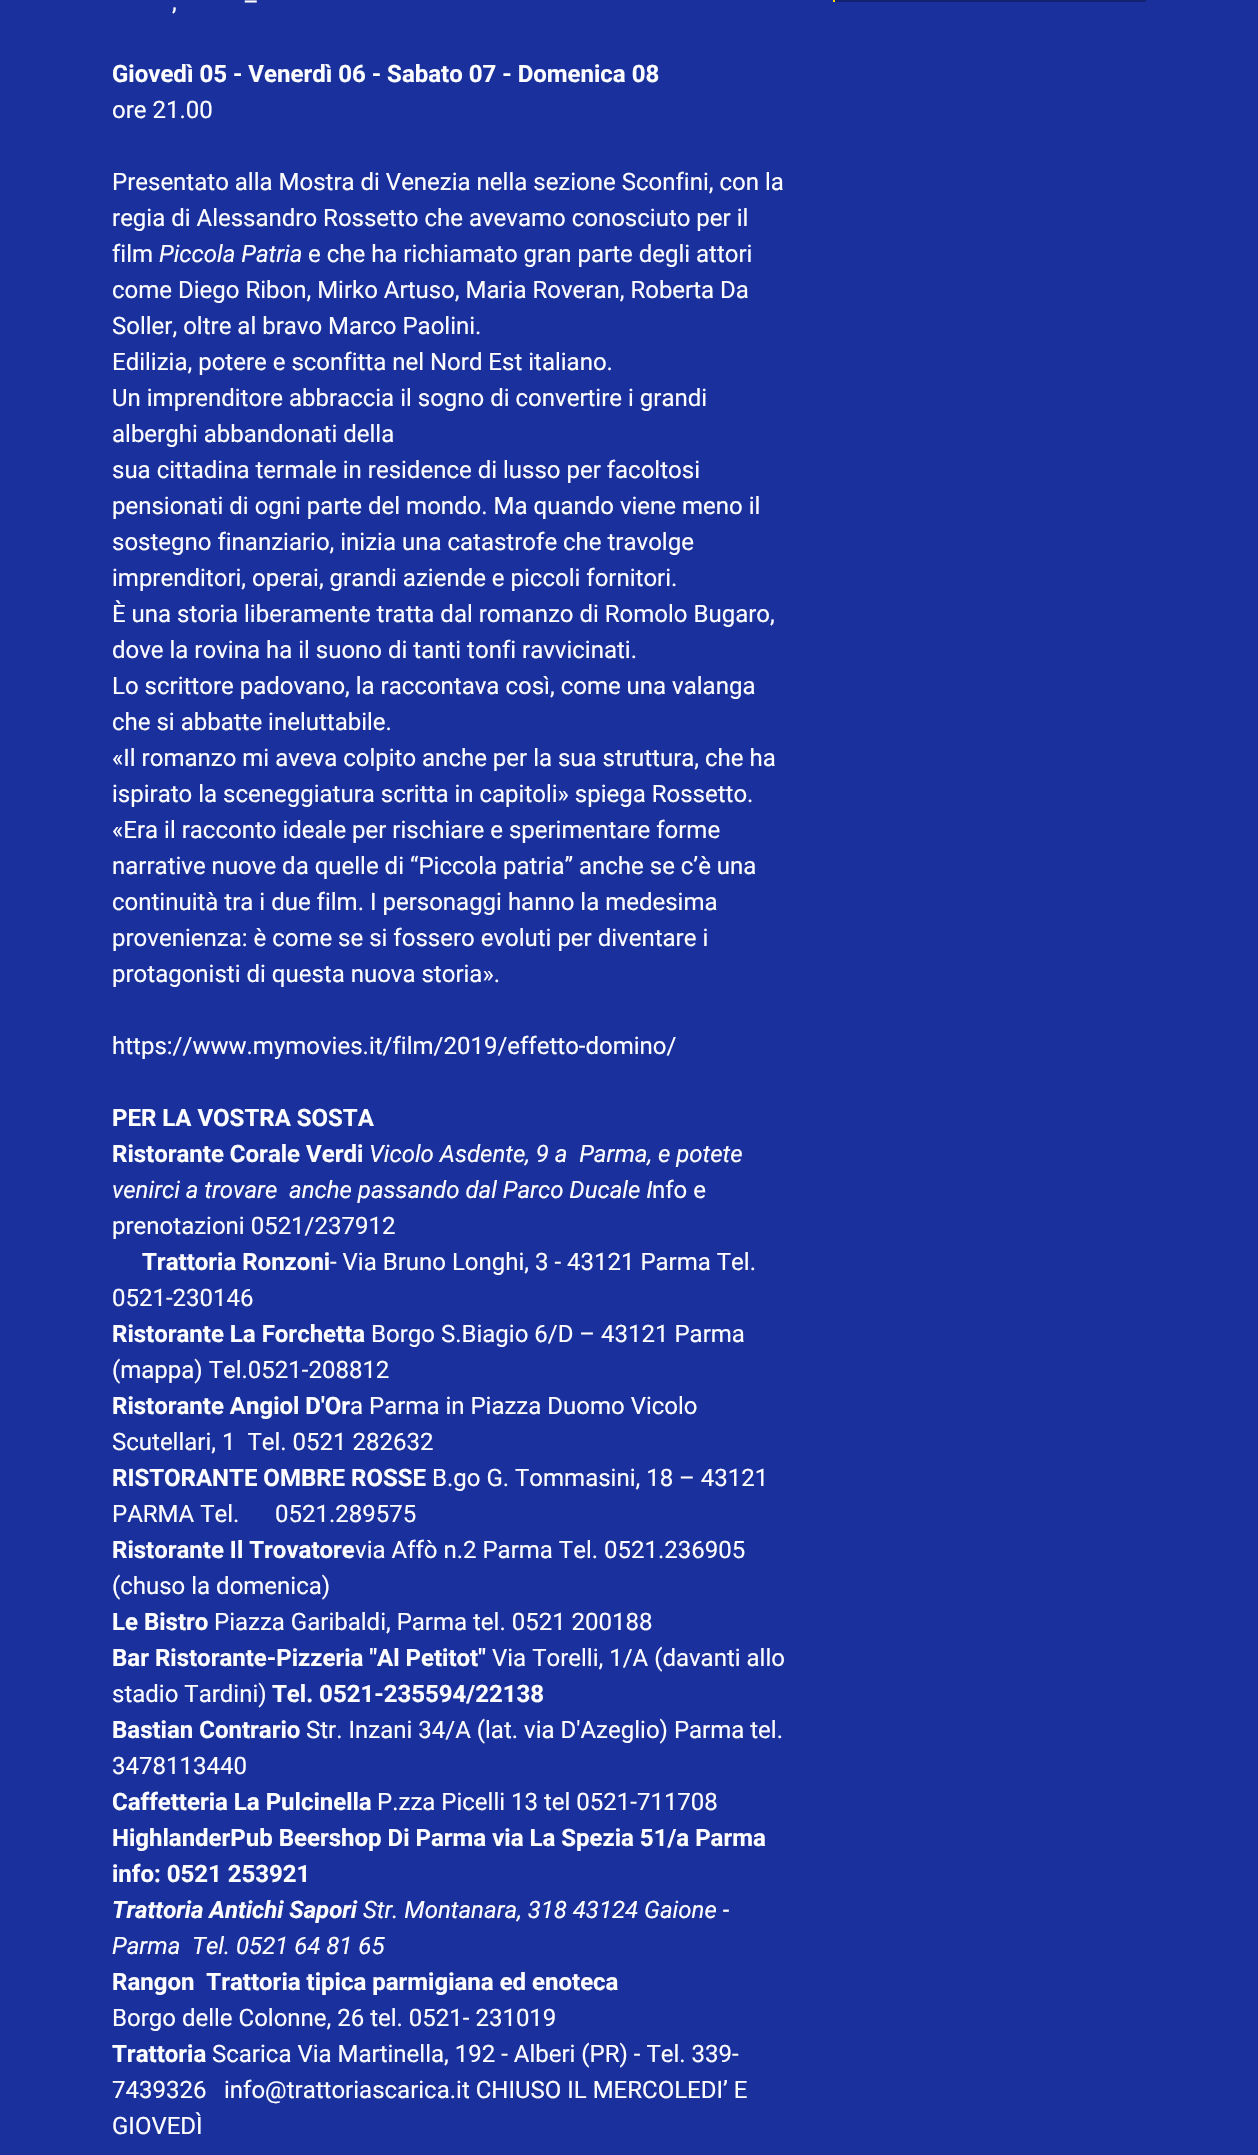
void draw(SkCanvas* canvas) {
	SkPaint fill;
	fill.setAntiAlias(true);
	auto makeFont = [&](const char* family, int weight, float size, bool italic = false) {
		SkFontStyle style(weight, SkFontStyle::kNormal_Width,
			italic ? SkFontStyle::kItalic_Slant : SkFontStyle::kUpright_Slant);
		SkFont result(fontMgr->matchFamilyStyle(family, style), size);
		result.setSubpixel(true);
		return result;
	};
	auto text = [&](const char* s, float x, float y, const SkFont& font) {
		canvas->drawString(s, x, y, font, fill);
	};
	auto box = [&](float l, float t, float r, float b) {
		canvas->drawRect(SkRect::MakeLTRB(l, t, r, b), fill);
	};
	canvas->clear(0xFF1A309D);
	fill.setColor(0xFF132371);
	box(833, 0, 1146, 2);
	fill.setColor(0xFFFFD700);
	box(833, 0, 835, 2);
	auto font1 = makeFont("Roboto", 400, 24);
	fill.setColor(0xFFFFFFFF);
	text("–", 243, 10, font1);
	text(",", 172, 10, font1);
	auto font2 = makeFont("Roboto", 700, 24);
	text("Giovedì 05 - Venerdì 06 - Sabato 07 - Domenica 08", 112, 82, font2);
	text("ore 21.00", 112, 118, font1);
	text("Presentato alla Mostra di Venezia nella sezione Sconfini, con la", 112, 190, font1);
	text("regia di Alessandro Rossetto che avevamo conosciuto per il", 112, 226, font1);
	text("film", 112, 262, font1);
	auto font3 = makeFont("Roboto", 400, 24, true);
	text("Piccola Patria", 159, 262, font3);
	text("e che ha richiamato gran parte degli attori", 308, 262, font1);
	text("come Diego Ribon, Mirko Artuso, Maria Roveran, Roberta Da", 112, 298, font1);
	text("Soller, oltre al bravo Marco Paolini.", 112, 334, font1);
	text("Edilizia, potere e sconfitta nel Nord Est italiano.", 112, 370, font1);
	text("Un imprenditore abbraccia il sogno di convertire i grandi", 112, 406, font1);
	text("alberghi abbandonati della", 112, 442, font1);
	text("sua cittadina termale in residence di lusso per facoltosi", 112, 478, font1);
	text("pensionati di ogni parte del mondo. Ma quando viene meno il", 112, 514, font1);
	text("sostegno finanziario, inizia una catastrofe che travolge", 112, 550, font1);
	text("imprenditori, operai, grandi aziende e piccoli fornitori.", 112, 586, font1);
	text("È una storia liberamente tratta dal romanzo di Romolo Bugaro,", 112, 622, font1);
	text("dove la rovina ha il suono di tanti tonfi ravvicinati.", 112, 658, font1);
	text("Lo scrittore padovano, la raccontava così, come una valanga", 112, 694, font1);
	text("che si abbatte ineluttabile.", 112, 730, font1);
	text("«Il romanzo mi aveva colpito anche per la sua struttura, che ha", 112, 766, font1);
	text("ispirato la sceneggiatura scritta in capitoli» spiega Rossetto.", 112, 802, font1);
	text("«Era il racconto ideale per rischiare e sperimentare forme", 112, 838, font1);
	text("narrative nuove da quelle di “Piccola patria” anche se c’è una", 112, 874, font1);
	text("continuità tra i due film. I personaggi hanno la medesima", 112, 910, font1);
	text("provenienza: è come se si fossero evoluti per diventare i", 112, 946, font1);
	text("protagonisti di questa nuova storia».", 112, 982, font1);
	text("https://www.mymovies.it/film/2019/effetto-domino/", 112, 1054, font1);
	text("PER LA VOSTRA SOSTA", 112, 1126, font2);
	text("Ristorante Corale Verdi", 112, 1162, font2);
	text("Vicolo Asdente, 9 a  Parma, e potete", 369, 1162, font3);
	text("venirci a trovare  anche passando dal Parco Ducale I", 112, 1198, font3);
	text("nfo e", 652, 1198, font1);
	text("prenotazioni 0521/237912", 112, 1234, font1);
	text("Trattoria Ronzoni", 142, 1270, font2);
	text("- Via Bruno Longhi, 3 - 43121 Parma Tel.", 330, 1270, font1);
	text("0521-230146", 112, 1306, font1);
	text("Ristorante La Forchetta", 112, 1342, font2);
	text("Borgo S.Biagio 6/D – 43121 Parma", 371, 1342, font1);
	text("(mappa) Tel.0521-208812", 112, 1378, font1);
	text("Ristorante Angiol D'Or", 112, 1414, font2);
	text("a Parma in Piazza Duomo Vicolo", 350, 1414, font1);
	text("Scutellari, 1  Tel. 0521 282632", 112, 1450, font1);
	text("RISTORANTE OMBRE ROSSE", 112, 1486, font2);
	text("B.go G. Tommasini, 18 – 43121", 432, 1486, font1);
	text("PARMA Tel.      0521.289575", 112, 1522, font1);
	text("Ristorante Il Trovatore", 112, 1558, font2);
	text("via Affò n.2 Parma Tel. 0521.236905", 355, 1558, font1);
	text("(chuso la domenica)", 112, 1594, font1);
	text("Le Bistro", 112, 1630, font2);
	text("Piazza Garibaldi, Parma tel. 0521 200188", 214, 1630, font1);
	text("Bar Ristorante-Pizzeria \"Al Petitot\"", 112, 1666, font2);
	text("Via Torelli, 1/A (davanti allo", 492, 1666, font1);
	text("stadio Tardini)", 112, 1702, font1);
	text("Tel. 0521-235594/22138", 272, 1702, font2);
	text("Bastian Contrario", 112, 1738, font2);
	text("Str. Inzani 34/A (lat. via D'Azeglio) Parma tel.", 306, 1738, font1);
	text("3478113440", 112, 1774, font1);
	text("Caffetteria La Pulcinella", 112, 1810, font2);
	text("P.zza Picelli 13 tel 0521-711708", 377, 1810, font1);
	text("HighlanderPub Beershop Di Parma via La Spezia 51/a Parma", 112, 1846, font2);
	text("info: 0521 253921", 112, 1882, font2);
	auto font4 = makeFont("Roboto", 700, 24, true);
	text("Trattoria Antichi Sapori", 112, 1918, font4);
	text("Str. Montanara, 318 43124 Gaione -", 363, 1918, font3);
	text("Parma  Tel. 0521 64 81 65", 112, 1954, font3);
	text("Rangon  Trattoria tipica parmigiana ed enoteca", 112, 1990, font2);
	text("Borgo delle Colonne, 26 tel. 0521- 231019", 112, 2026, font1);
	text("Trattoria", 112, 2062, font2);
	text("Scarica Via Martinella, 192 - Alberi (PR) - Tel. 339-", 212, 2062, font1);
	text("7439326", 112, 2098, font1);
	text("info@trattoriascarica.it CHIUSO IL MERCOLEDI’ E", 224, 2098, font1);
	text("GIOVEDÌ", 112, 2134, font1);
}
